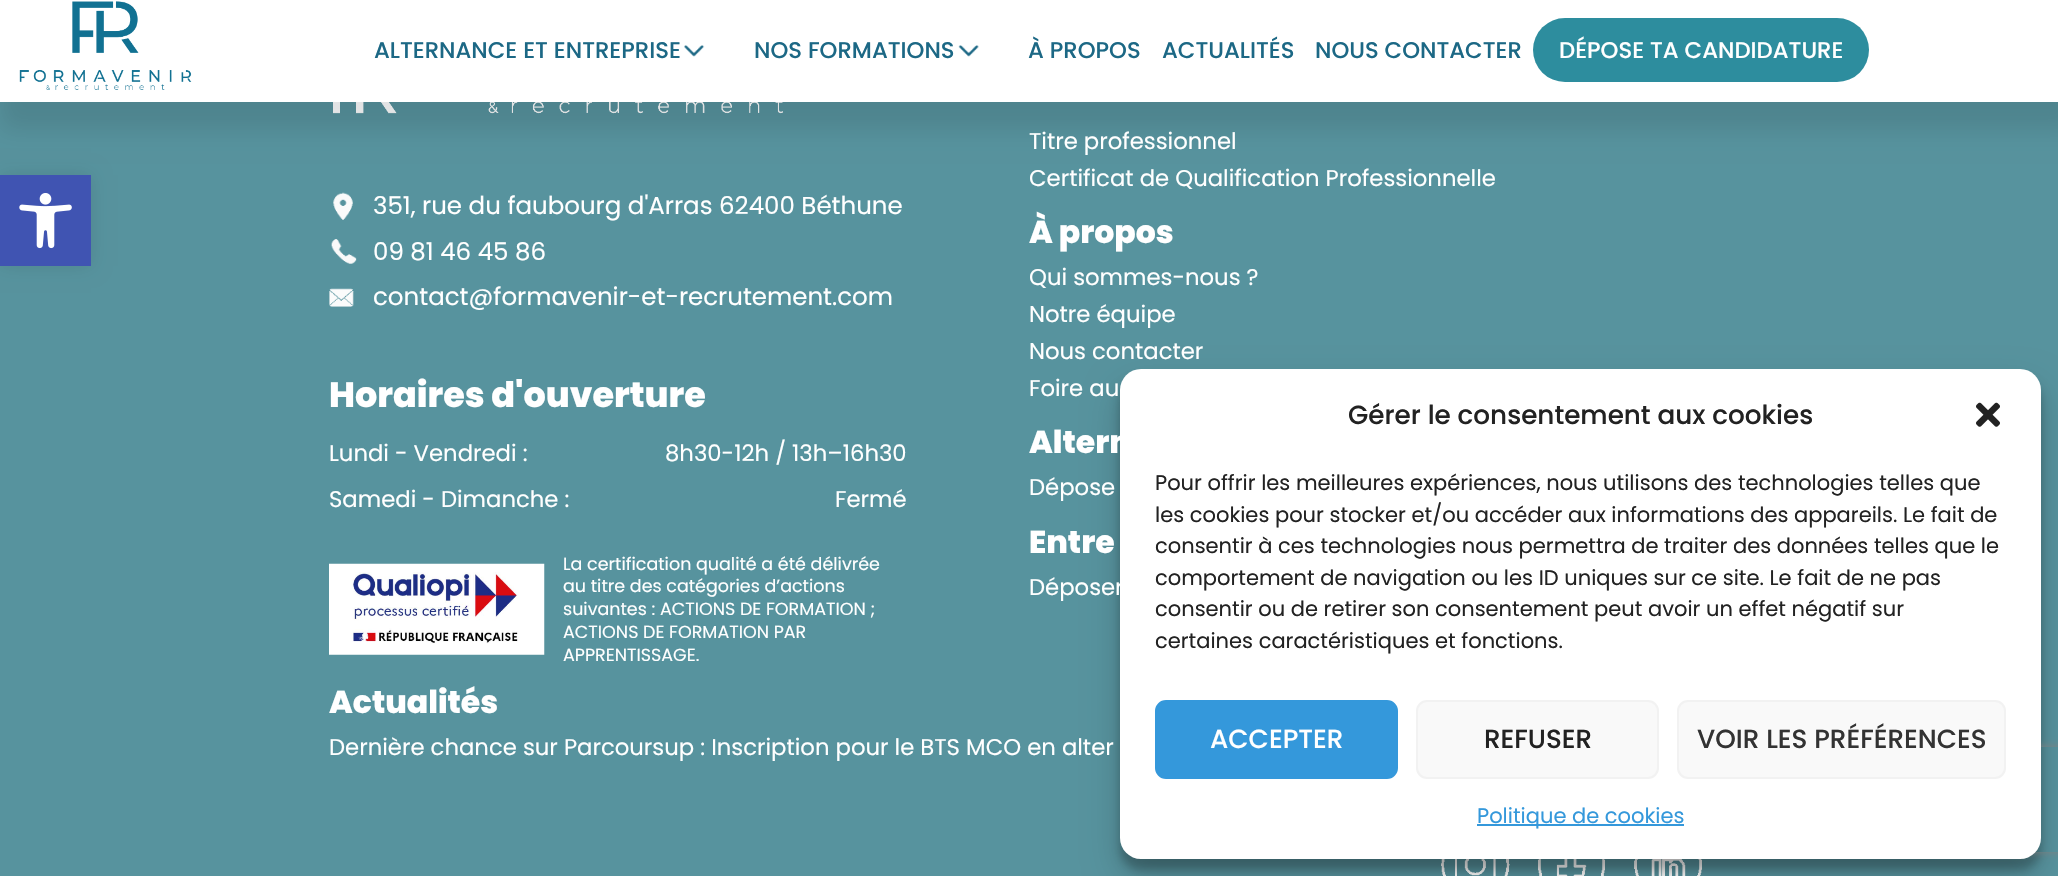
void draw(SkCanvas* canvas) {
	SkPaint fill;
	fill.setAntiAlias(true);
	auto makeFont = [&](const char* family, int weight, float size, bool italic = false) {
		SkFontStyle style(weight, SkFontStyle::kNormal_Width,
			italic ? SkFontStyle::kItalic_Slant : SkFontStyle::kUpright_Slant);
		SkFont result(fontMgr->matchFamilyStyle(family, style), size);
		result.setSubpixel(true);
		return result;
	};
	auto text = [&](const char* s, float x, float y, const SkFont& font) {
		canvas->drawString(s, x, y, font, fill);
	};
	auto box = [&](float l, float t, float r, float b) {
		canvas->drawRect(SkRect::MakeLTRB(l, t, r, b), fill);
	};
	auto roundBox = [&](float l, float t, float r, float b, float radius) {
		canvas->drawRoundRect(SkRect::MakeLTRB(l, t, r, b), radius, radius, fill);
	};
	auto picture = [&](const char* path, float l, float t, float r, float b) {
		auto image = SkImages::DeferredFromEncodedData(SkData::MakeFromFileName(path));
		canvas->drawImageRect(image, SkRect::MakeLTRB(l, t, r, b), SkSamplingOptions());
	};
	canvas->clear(0xFF57939E);
	picture("image4.png", 333, 102, 783, 114);
	fill.setColor(0x1A000000);
	fill.setMaskFilter(SkMaskFilter::MakeBlur(kNormal_SkBlurStyle, 11.5f));
	canvas->drawRect(SkRect::MakeLTRB(0, 11, 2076, 130), fill);
	fill.setMaskFilter(nullptr);
	fill.setColor(0xFFFFFFFF);
	box(0, 0, 2058, 102);
	picture("image0.png", 19, 1, 192, 90);
	picture("image1.png", 684, 45, 705, 57);
	picture("image2.png", 958, 45, 979, 57);
	fill.setColor(0xFF2D8D9E);
	roundBox(1533, 18, 1869, 82, 32);
	fill.setColor(0x1A000000);
	fill.setMaskFilter(SkMaskFilter::MakeBlur(kNormal_SkBlurStyle, 9));
	canvas->drawRect(SkRect::MakeLTRB(0, 175, 91, 266), fill);
	fill.setMaskFilter(nullptr);
	fill.setColor(0xFF4054B2);
	box(0, 175, 91, 266);
	picture("image3.png", 19, 193, 72, 249);
	picture("image5.png", 333, 192, 353, 220);
	picture("image6.png", 331, 239, 357, 264);
	picture("image7.png", 329, 288, 354, 307);
	picture("image8.png", 329, 563, 545, 655);
	picture("image9.png", 1441, 859, 1510, 876);
	picture("image10.png", 1538, 859, 1605, 876);
	picture("image11.png", 1634, 859, 1702, 876);
	fill.setColor(0x3B000000);
	fill.setMaskFilter(SkMaskFilter::MakeBlur(kNormal_SkBlurStyle, 5));
	canvas->drawRoundRect(SkRect::MakeLTRB(1120, 380, 2041, 870), 21, 21, fill);
	fill.setMaskFilter(nullptr);
	fill.setColor(0x30000000);
	fill.setMaskFilter(SkMaskFilter::MakeBlur(kNormal_SkBlurStyle, 17.5f));
	canvas->drawRoundRect(SkRect::MakeLTRB(1120, 387, 2041, 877), 21, 21, fill);
	fill.setMaskFilter(nullptr);
	canvas->save();
	canvas->clipPath(SkPathBuilder(SkPathFillType::kEvenOdd).moveTo(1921, 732).lineTo(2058, 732).lineTo(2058, 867).lineTo(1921, 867).close().moveTo(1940, 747).lineTo(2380, 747).cubicTo(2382, 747, 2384, 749, 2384, 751).lineTo(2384, 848).cubicTo(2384, 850, 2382, 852, 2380, 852).lineTo(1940, 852).cubicTo(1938, 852, 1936, 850, 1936, 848).lineTo(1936, 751).cubicTo(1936, 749, 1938, 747, 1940, 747).close().detach(), true);
	fill.setColor(0xFF808080);
	fill.setMaskFilter(SkMaskFilter::MakeBlur(kNormal_SkBlurStyle, 4.5f));
	canvas->drawRoundRect(SkRect::MakeLTRB(1936, 747, 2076, 852), 4, 4, fill);
	fill.setMaskFilter(nullptr);
	canvas->restore();
	fill.setColor(0xFFFFFFFF);
	roundBox(1120, 369, 2041, 859, 21);
	picture("image12.png", 1976, 402, 2000, 427);
	fill.setColor(0xFF3498DB);
	canvas->drawRoundRect(SkRect::MakeLTRB(1156, 701, 1397, 778), 10, 10, fill);
	fill.setStyle(SkPaint::kStroke_Style);
	fill.setStrokeWidth(2);
	canvas->drawRoundRect(SkRect::MakeLTRB(1156, 701, 1397, 778), 10, 10, fill);
	fill.setStyle(SkPaint::kFill_Style);
	fill.setColor(0xFFF9F9F9);
	canvas->drawRoundRect(SkRect::MakeLTRB(1417, 701, 1658, 778), 10, 10, fill);
	fill.setStyle(SkPaint::kStroke_Style);
	fill.setColor(0xFFF2F2F2);
	canvas->drawRoundRect(SkRect::MakeLTRB(1417, 701, 1658, 778), 10, 10, fill);
	fill.setStyle(SkPaint::kFill_Style);
	fill.setColor(0xFFF9F9F9);
	canvas->drawRoundRect(SkRect::MakeLTRB(1678, 701, 2005, 778), 10, 10, fill);
	fill.setStyle(SkPaint::kStroke_Style);
	fill.setColor(0xFFF2F2F2);
	canvas->drawRoundRect(SkRect::MakeLTRB(1678, 701, 2005, 778), 10, 10, fill);
	fill.setStyle(SkPaint::kFill_Style);
	fill.setColor(0xFF3498DB);
	box(1477, 824, 1684, 826);
	auto font1 = makeFont("Poppins", 500, 22.75f);
	fill.setColor(0xFF1C6885);
	text("ALTERNANCE ET ENTREPRISE", 374, 58, font1);
	text("NOS FORMATIONS", 754, 58, font1);
	text("À PROPOS", 1028, 58, font1);
	text("ACTUALITÉS", 1162, 58, font1);
	text("NOUS CONTACTER", 1315, 58, font1);
	fill.setColor(0xFFFFFFFF);
	text("DÉPOSE TA CANDIDATURE", 1559, 58, font1);
	auto font2 = makeFont("Poppins", 400, 24.5f);
	text("351, rue du faubourg d'Arras 62400 Béthune", 373, 214, font2);
	text("09 81 46 45 86", 373, 260, font2);
	text("contact@formavenir-et-recrutement.com", 373, 305, font2);
	auto font3 = makeFont("Poppins", 800, 35);
	text("Horaires d'ouverture", 329, 407, font3);
	auto font4 = makeFont("Poppins", 400, 22.75f);
	text("Lundi - Vendredi :", 329, 461, font4);
	text("8h30-12h / 13h–16h30", 665, 461, font4);
	text("Samedi - Dimanche :", 329, 507, font4);
	text("Fermé", 835, 507, font4);
	auto font5 = makeFont("Poppins", 400, 17.5f);
	text("La certification qualité a été délivrée", 563, 570, font5);
	text("au titre des catégories d’actions", 563, 592, font5);
	text("suivantes : ACTIONS DE FORMATION ;", 563, 615, font5);
	text("ACTIONS DE FORMATION PAR", 563, 638, font5);
	text("APPRENTISSAGE.", 563, 661, font5);
	text("Titre professionnel", 1029, 149, font4);
	text("Certificat de Qualification Professionnelle", 1029, 186, font4);
	auto font6 = makeFont("Poppins", 800, 31.5f);
	text("À propos", 1029, 243, font6);
	text("Qui sommes-nous ?", 1029, 285, font4);
	text("Notre équipe", 1029, 322, font4);
	text("Nous contacter", 1029, 359, font4);
	text("Foire au", 1029, 396, font4);
	text("Altern", 1029, 453, font6);
	text("Dépose", 1029, 495, font4);
	text("Entre", 1029, 553, font6);
	text("Déposer", 1029, 595, font4);
	text("Actualités", 329, 713, font6);
	text("Dernière chance sur Parcoursup : Inscription pour le BTS MCO en alter", 329, 755, font4);
	auto font7 = makeFont("Poppins", 500, 26.25f);
	fill.setColor(0xFF222222);
	text("Gérer le consentement aux cookies", 1348, 424, font7);
	auto font8 = makeFont("Poppins", 400, 21);
	text("Pour offrir les meilleures expériences, nous utilisons des technologies telles que", 1155, 490, font8);
	text("les cookies pour stocker et/ou accéder aux informations des appareils. Le fait de", 1155, 522, font8);
	text("consentir à ces technologies nous permettra de traiter des données telles que le", 1155, 553, font8);
	text("comportement de navigation ou les ID uniques sur ce site. Le fait de ne pas", 1155, 585, font8);
	text("consentir ou de retirer son consentement peut avoir un effet négatif sur", 1155, 616, font8);
	text("certaines caractéristiques et fonctions.", 1155, 648, font8);
	fill.setColor(0xFFFFFFFF);
	text("ACCEPTER", 1210, 748, font7);
	fill.setColor(0xFF222222);
	text("REFUSER", 1484, 748, font7);
	fill.setColor(0xFF333333);
	text("VOIR LES PRÉFÉRENCES", 1697, 748, font7);
	fill.setColor(0xFF3498DB);
	text("Politique de cookies", 1477, 823, font8);
}
